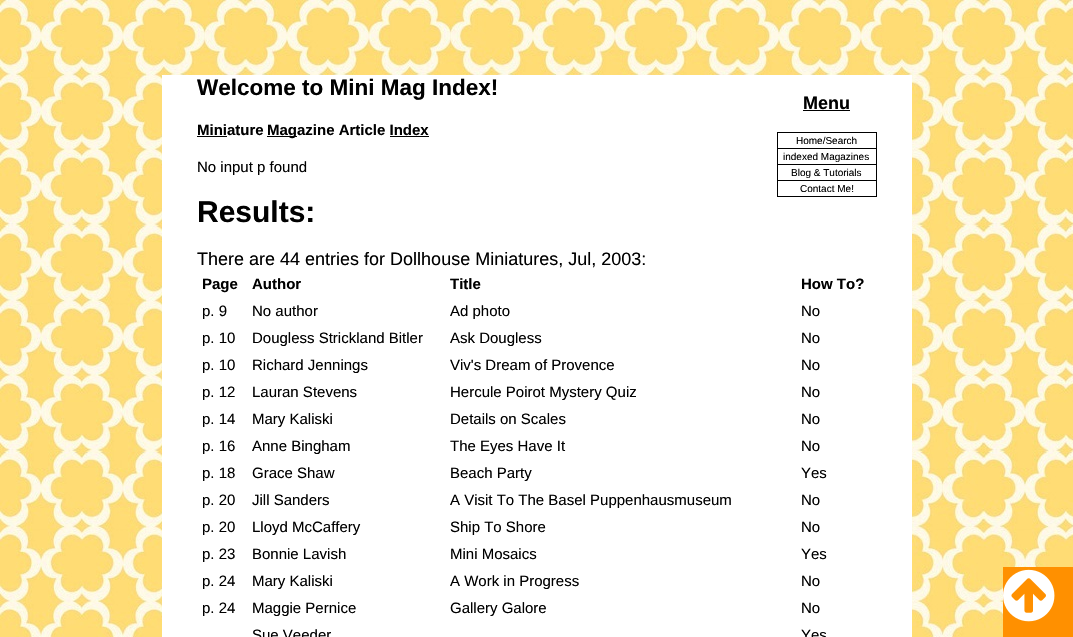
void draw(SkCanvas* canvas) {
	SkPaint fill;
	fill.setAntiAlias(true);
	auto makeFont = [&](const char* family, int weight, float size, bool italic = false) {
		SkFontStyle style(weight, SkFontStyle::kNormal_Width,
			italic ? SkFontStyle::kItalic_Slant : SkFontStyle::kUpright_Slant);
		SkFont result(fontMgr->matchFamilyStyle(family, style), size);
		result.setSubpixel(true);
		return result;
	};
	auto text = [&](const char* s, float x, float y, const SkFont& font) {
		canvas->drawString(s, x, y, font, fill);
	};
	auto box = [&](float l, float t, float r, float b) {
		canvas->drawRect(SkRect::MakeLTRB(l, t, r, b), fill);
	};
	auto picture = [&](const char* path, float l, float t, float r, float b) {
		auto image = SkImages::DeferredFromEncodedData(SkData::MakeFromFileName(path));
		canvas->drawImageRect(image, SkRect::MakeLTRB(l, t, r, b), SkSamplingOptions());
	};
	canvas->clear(0xFFFFFFFF);
	picture("image0.png", 0, 0, 1073, 637);
	fill.setColor(0xFFFFFFFF);
	box(162, 75, 912, 637);
	fill.setColor(0xFF000000);
	box(197, 136, 227, 137);
	box(267, 136, 297, 137);
	box(390, 136, 429, 137);
	box(803, 110, 850, 111);
	box(777, 132, 877, 133);
	box(777, 148, 877, 149);
	box(876, 133, 877, 148);
	box(777, 133, 778, 148);
	box(777, 164, 877, 165);
	box(876, 149, 877, 164);
	box(777, 149, 778, 164);
	box(777, 180, 877, 181);
	box(876, 165, 877, 180);
	box(777, 165, 778, 180);
	box(777, 196, 877, 197);
	box(876, 181, 877, 196);
	box(777, 181, 778, 196);
	fill.setColor(0xFFFF9000);
	box(1003, 567, 1073, 637);
	picture("image1.png", 1003, 569, 1055, 622);
	auto font1 = makeFont("Liberation Sans", 700, 22.5f);
	fill.setColor(0xFF000000);
	text("Welcome to Mini Mag Index!", 197, 95, font1);
	auto font2 = makeFont("Liberation Sans", 700, 15);
	text("Miniature", 197, 135, font2);
	text("Magazine Article Index", 267, 135, font2);
	auto font3 = makeFont("Liberation Sans", 700, 18);
	text("Menu", 803, 109, font3);
	auto font4 = makeFont("Liberation Sans", 400, 10);
	text("Home/Search", 796, 144, font4);
	text("indexed Magazines", 783, 160, font4);
	text("Blog & Tutorials", 791, 176, font4);
	text("Contact Me!", 800, 192, font4);
	auto font5 = makeFont("Liberation Sans", 400, 15);
	text("No input p found", 197, 172, font5);
	auto font6 = makeFont("Liberation Sans", 700, 30);
	text("Results:", 197, 222, font6);
	auto font7 = makeFont("Liberation Sans", 400, 18);
	text("There are 44 entries for Dollhouse Miniatures, Jul, 2003:", 197, 265, font7);
	text("Page", 202, 289, font2);
	text("Author", 252, 289, font2);
	text("Title", 450, 289, font2);
	text("How To?", 801, 289, font2);
	text("p. 9", 202, 316, font5);
	text("No author", 252, 316, font5);
	text("Ad photo", 450, 316, font5);
	text("No", 801, 316, font5);
	text("p. 10", 202, 343, font5);
	text("Dougless Strickland Bitler", 252, 343, font5);
	text("Ask Dougless", 450, 343, font5);
	text("No", 801, 343, font5);
	text("p. 10", 202, 370, font5);
	text("Richard Jennings", 252, 370, font5);
	text("Viv's Dream of Provence", 450, 370, font5);
	text("No", 801, 370, font5);
	text("p. 12", 202, 397, font5);
	text("Lauran Stevens", 252, 397, font5);
	text("Hercule Poirot Mystery Quiz", 450, 397, font5);
	text("No", 801, 397, font5);
	text("p. 14", 202, 424, font5);
	text("Mary Kaliski", 252, 424, font5);
	text("Details on Scales", 450, 424, font5);
	text("No", 801, 424, font5);
	text("p. 16", 202, 451, font5);
	text("Anne Bingham", 252, 451, font5);
	text("The Eyes Have It", 450, 451, font5);
	text("No", 801, 451, font5);
	text("p. 18", 202, 478, font5);
	text("Grace Shaw", 252, 478, font5);
	text("Beach Party", 450, 478, font5);
	text("Yes", 801, 478, font5);
	text("p. 20", 202, 505, font5);
	text("Jill Sanders", 252, 505, font5);
	text("A Visit To The Basel Puppenhausmuseum", 450, 505, font5);
	text("No", 801, 505, font5);
	text("p. 20", 202, 532, font5);
	text("Lloyd McCaffery", 252, 532, font5);
	text("Ship To Shore", 450, 532, font5);
	text("No", 801, 532, font5);
	text("p. 23", 202, 559, font5);
	text("Bonnie Lavish", 252, 559, font5);
	text("Mini Mosaics", 450, 559, font5);
	text("Yes", 801, 559, font5);
	text("p. 24", 202, 586, font5);
	text("Mary Kaliski", 252, 586, font5);
	text("A Work in Progress", 450, 586, font5);
	text("No", 801, 586, font5);
	text("p. 24", 202, 613, font5);
	text("Maggie Pernice", 252, 613, font5);
	text("Gallery Galore", 450, 613, font5);
	text("No", 801, 613, font5);
	text("Sue Veeder", 252, 640, font5);
	text("Yes", 801, 640, font5);
}
